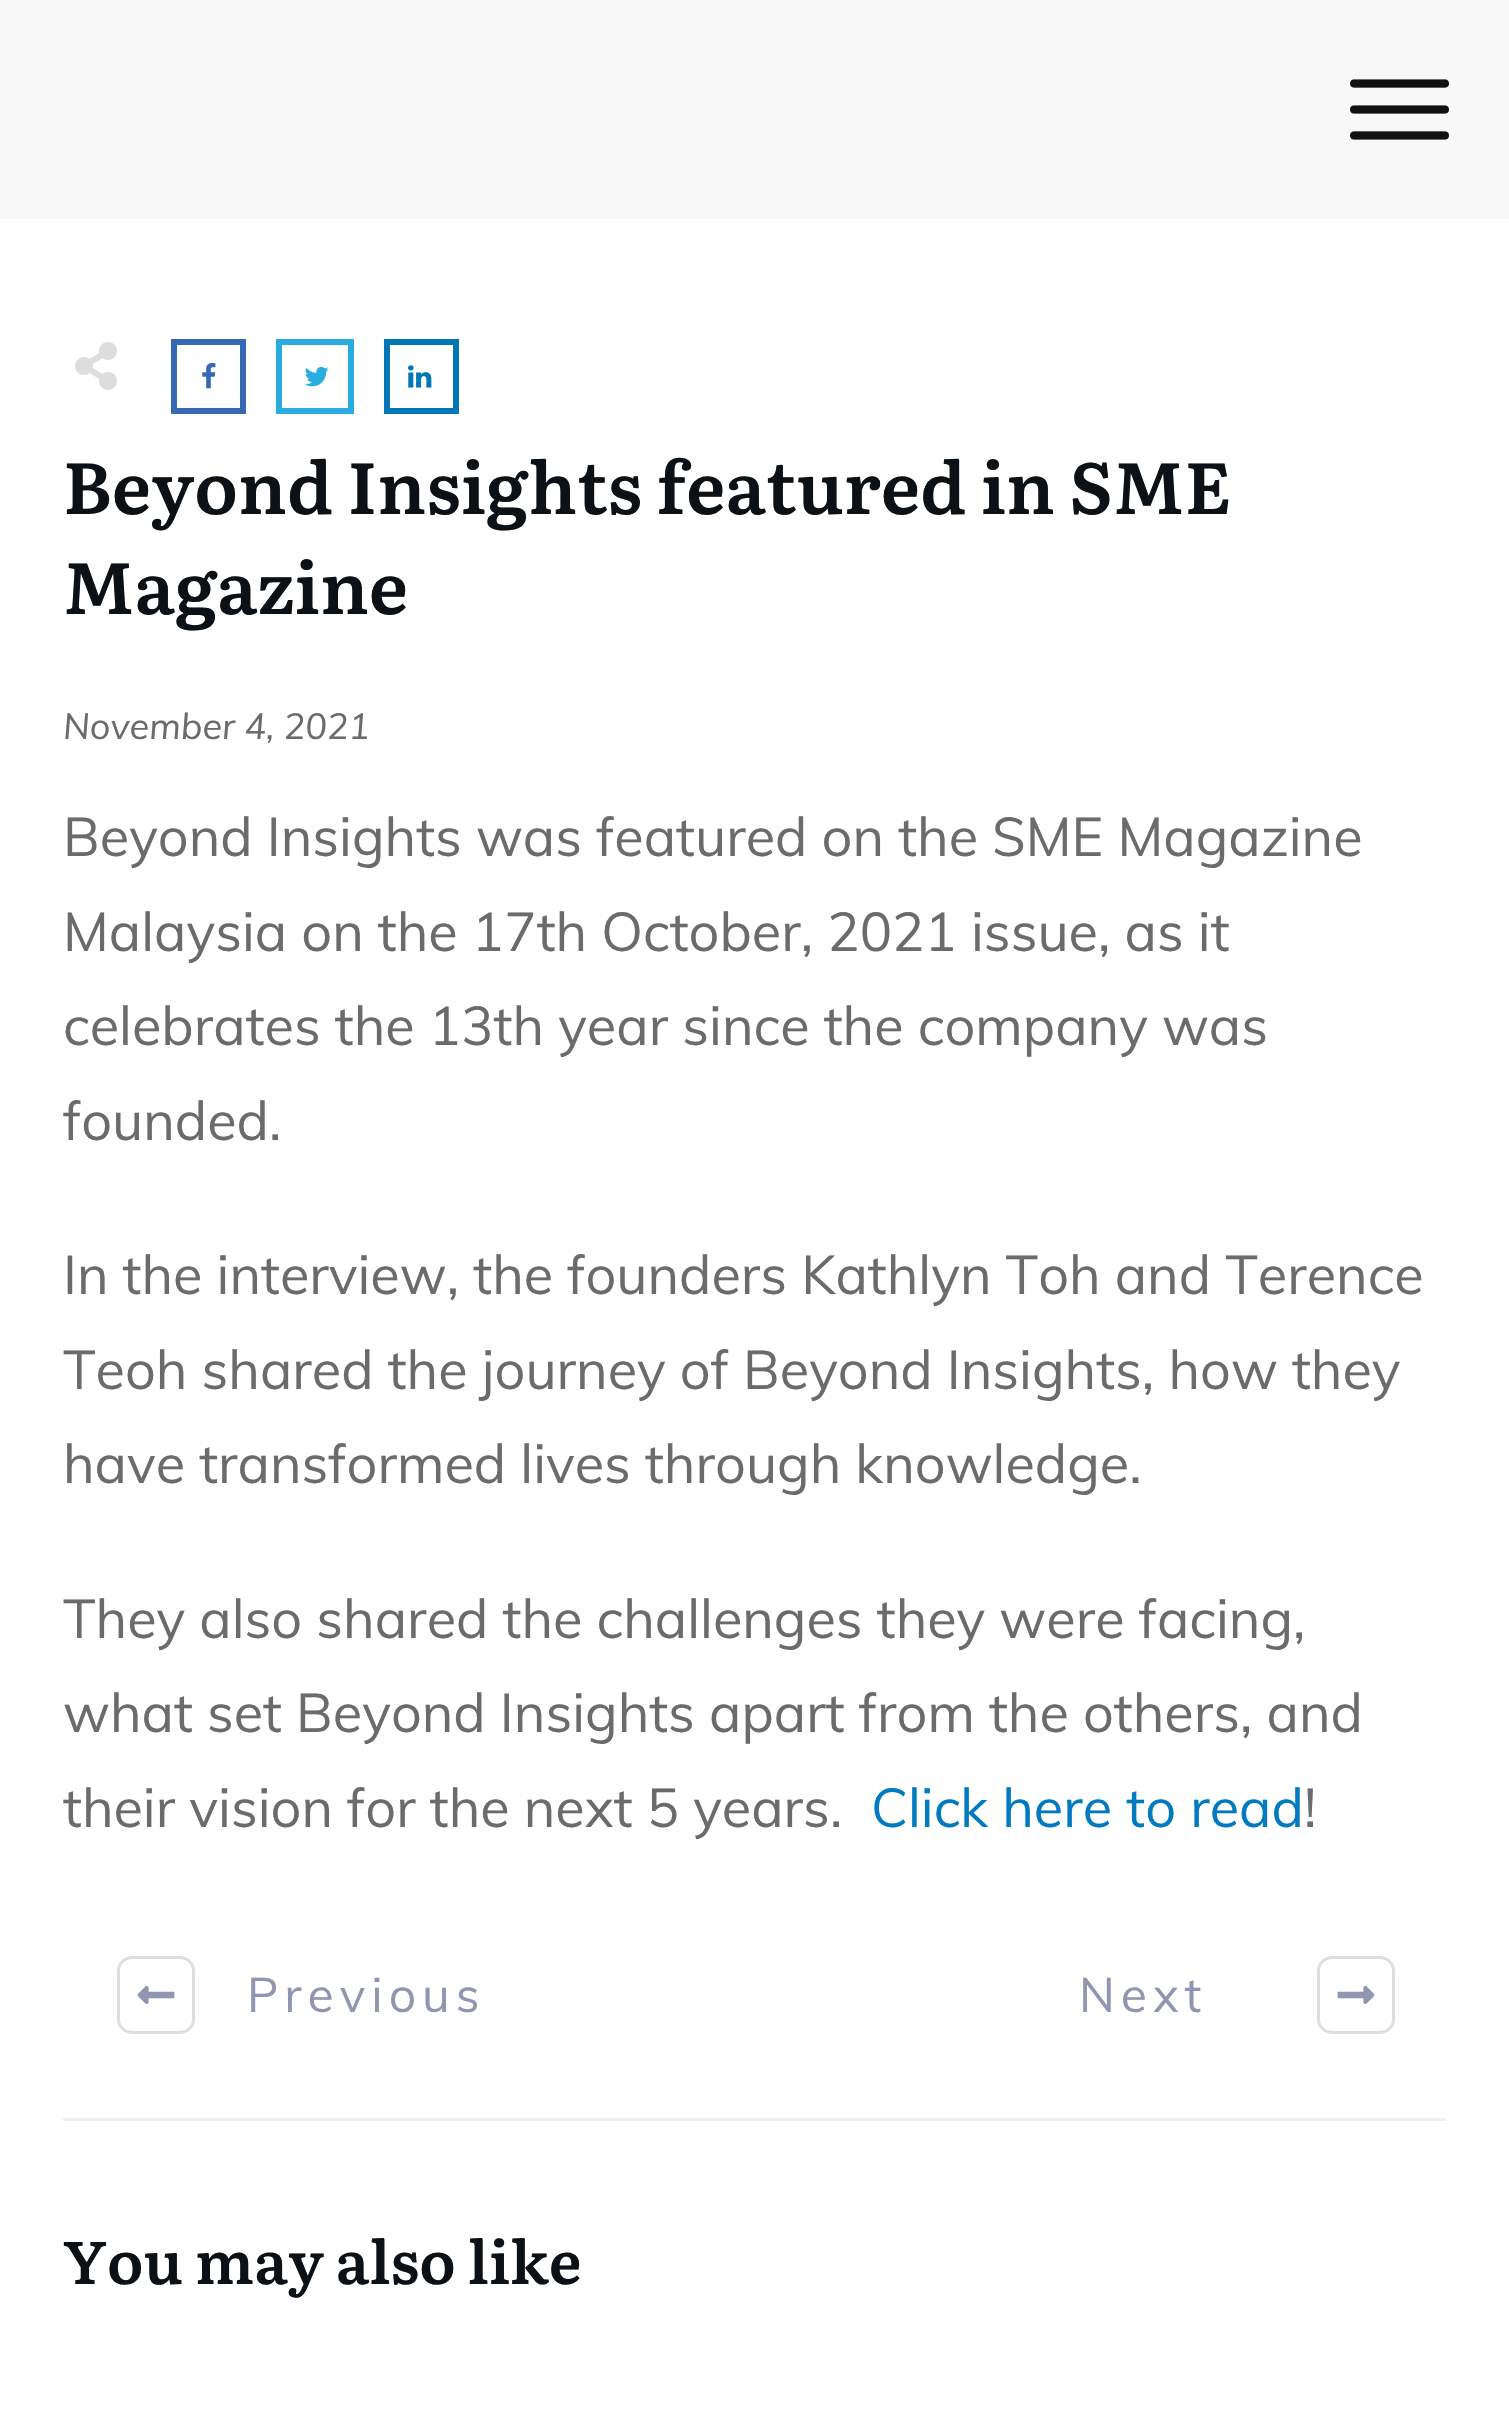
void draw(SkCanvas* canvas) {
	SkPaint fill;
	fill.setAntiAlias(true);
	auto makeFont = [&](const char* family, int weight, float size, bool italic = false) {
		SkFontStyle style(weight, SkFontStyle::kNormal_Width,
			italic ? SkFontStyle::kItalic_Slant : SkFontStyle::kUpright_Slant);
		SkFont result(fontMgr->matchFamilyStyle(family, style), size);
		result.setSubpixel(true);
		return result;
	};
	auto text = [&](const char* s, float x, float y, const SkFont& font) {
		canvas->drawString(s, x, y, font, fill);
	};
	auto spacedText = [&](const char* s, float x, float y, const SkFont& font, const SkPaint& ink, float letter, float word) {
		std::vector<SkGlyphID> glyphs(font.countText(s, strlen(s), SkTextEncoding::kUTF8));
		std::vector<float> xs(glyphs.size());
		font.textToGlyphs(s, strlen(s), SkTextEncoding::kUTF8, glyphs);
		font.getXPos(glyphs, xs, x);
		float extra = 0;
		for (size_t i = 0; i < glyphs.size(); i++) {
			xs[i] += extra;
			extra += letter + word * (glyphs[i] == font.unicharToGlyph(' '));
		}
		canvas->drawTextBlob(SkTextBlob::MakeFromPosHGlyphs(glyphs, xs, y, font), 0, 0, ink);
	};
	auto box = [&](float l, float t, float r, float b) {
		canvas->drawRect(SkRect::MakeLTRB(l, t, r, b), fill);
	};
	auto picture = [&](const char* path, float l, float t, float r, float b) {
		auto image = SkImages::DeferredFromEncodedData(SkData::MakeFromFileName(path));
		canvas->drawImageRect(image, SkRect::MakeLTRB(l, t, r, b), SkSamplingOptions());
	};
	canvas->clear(0xFFFFFFFF);
	fill.setColor(0xFFF8F8F8);
	box(0, 0, 1509, 219);
	picture("image0.png", 1350, 79, 1449, 140);
	picture("image1.png", 75, 342, 117, 390);
	fill.setStyle(SkPaint::kStroke_Style);
	fill.setStrokeWidth(6);
	fill.setColor(0xFF3569B4);
	canvas->drawRect(SkRect::MakeLTRB(174, 342, 243, 411), fill);
	picture("image2.png", 202, 363, 216, 389);
	fill.setColor(0xFF29ACE0);
	canvas->drawRect(SkRect::MakeLTRB(279, 342, 351, 411), fill);
	picture("image3.png", 304, 366, 329, 387);
	fill.setColor(0xFF0177B5);
	canvas->drawRect(SkRect::MakeLTRB(387, 342, 456, 411), fill);
	picture("image4.png", 408, 365, 432, 388);
	fill.setStrokeWidth(3);
	fill.setColor(0xFFDEDEDE);
	canvas->drawRoundRect(SkRect::MakeLTRB(118.5f, 1957.5f, 193.5f, 2032.5f), 13.5f, 13.5f, fill);
	picture("image5.png", 137, 1986, 175, 2004);
	canvas->drawRoundRect(SkRect::MakeLTRB(1318.5f, 1957.5f, 1393.5f, 2032.5f), 13.5f, 13.5f, fill);
	picture("image6.png", 1337, 1986, 1375, 2004);
	fill.setStyle(SkPaint::kFill_Style);
	fill.setColor(0xFFF0F0F0);
	box(63, 2118, 1446, 2121);
	auto font1 = makeFont("Literata", 600, 72);
	fill.setColor(0xFF0C1115);
	text("Beyond Insights featured in SME", 63, 514, font1);
	text("Magazine", 63, 614, font1);
	auto font2 = makeFont("Muli", 400, 36, true);
	fill.setColor(0xFF6A6B6C);
	text("November 4, 2021", 63, 739, font2);
	auto font3 = makeFont("Muli", 400, 54);
	text("Beyond Insights was featured on the SME Magazine", 63, 856, font3);
	text("Malaysia on the 17th October, 2021 issue, as it", 63, 951, font3);
	text("celebrates the 13th year since the company was", 63, 1045, font3);
	text("founded.", 63, 1140, font3);
	text("In the interview, the founders Kathlyn Toh and Terence", 63, 1294, font3);
	text("Teoh shared the journey of Beyond Insights, how they", 63, 1389, font3);
	text("have transformed lives through knowledge.", 63, 1483, font3);
	text("They also shared the challenges they were facing,", 63, 1638, font3);
	text("what set Beyond Insights apart from the others, and", 63, 1732, font3);
	text("their vision for the next 5 years.", 63, 1827, font3);
	fill.setColor(0xFF017AC1);
	text("Click here to read", 871, 1827, font3);
	fill.setColor(0xFF6A6B6C);
	text("!", 1304, 1827, font3);
	auto font4 = makeFont("Muli", 400, 48);
	fill.setColor(0xFF9096AF);
	spacedText("Previous", 247, 2012, font4, fill, 6, 0);
	spacedText("Next", 1079, 2012, font4, fill, 6, 0);
	auto font5 = makeFont("Literata", 600, 60);
	fill.setColor(0xFF0C1115);
	text("You may also like", 63, 2284, font5);
}
